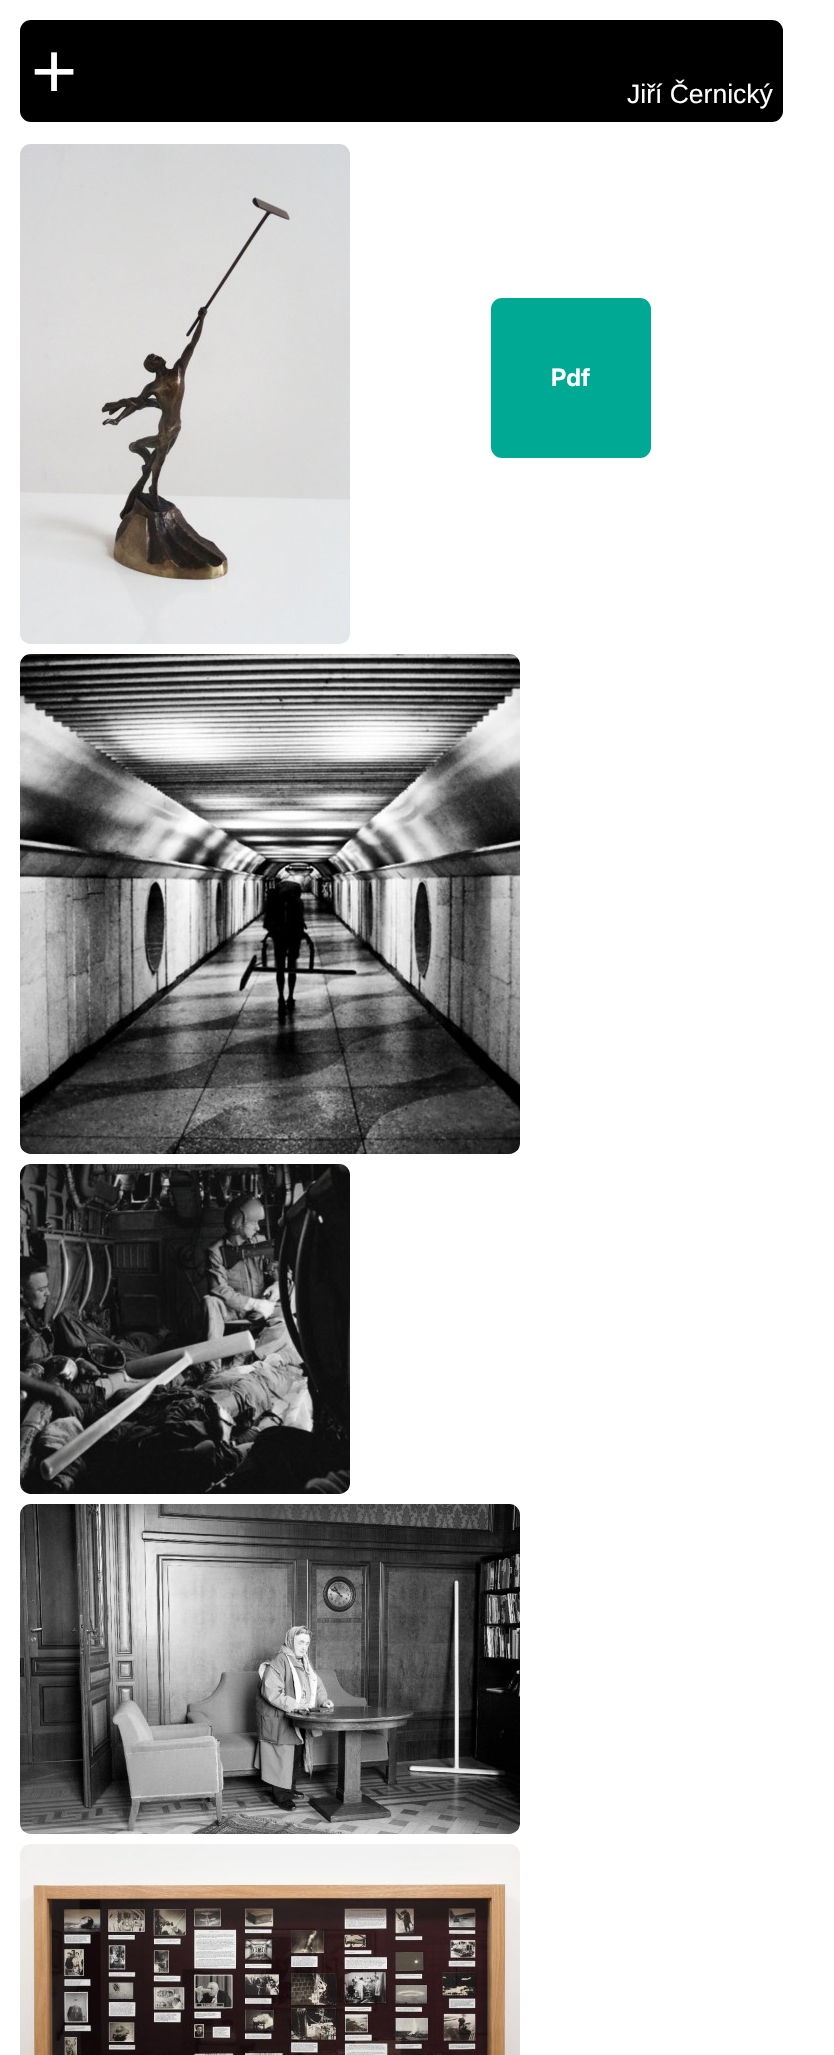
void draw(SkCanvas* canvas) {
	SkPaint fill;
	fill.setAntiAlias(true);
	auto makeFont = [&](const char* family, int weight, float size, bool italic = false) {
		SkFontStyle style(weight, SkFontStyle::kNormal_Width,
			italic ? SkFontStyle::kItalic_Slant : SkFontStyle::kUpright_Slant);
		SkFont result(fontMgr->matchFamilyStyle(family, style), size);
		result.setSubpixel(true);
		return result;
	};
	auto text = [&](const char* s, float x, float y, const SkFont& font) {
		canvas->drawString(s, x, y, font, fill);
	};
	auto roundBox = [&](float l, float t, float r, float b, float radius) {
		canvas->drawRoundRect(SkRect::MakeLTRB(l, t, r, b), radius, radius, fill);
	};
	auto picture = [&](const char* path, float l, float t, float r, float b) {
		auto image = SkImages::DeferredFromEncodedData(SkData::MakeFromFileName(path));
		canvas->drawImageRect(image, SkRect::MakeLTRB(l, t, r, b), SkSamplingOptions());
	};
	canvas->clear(0xFFFFFFFF);
	fill.setColor(0xFF000000);
	roundBox(20, 20, 783, 122, 11);
	picture("image0.png", 20, 144, 350, 644);
	fill.setColor(0xFF00A993);
	roundBox(491, 298, 651, 458, 11);
	picture("image1.png", 20, 654, 520, 1154);
	picture("image2.png", 20, 1164, 350, 1494);
	picture("image3.png", 20, 1504, 520, 1834);
	picture("image4.png", 20, 1844, 520, 2055);
	auto font1 = makeFont("Liberation Sans", 400, 79);
	fill.setColor(0xFFFFFFFF);
	text("+", 31, 98, font1);
	auto font2 = makeFont("Liberation Sans", 400, 26.5f);
	text("Jiří Černický", 627, 103, font2);
	auto font3 = makeFont("Inter", 700, 24);
	text("Pdf", 551, 386, font3);
}
